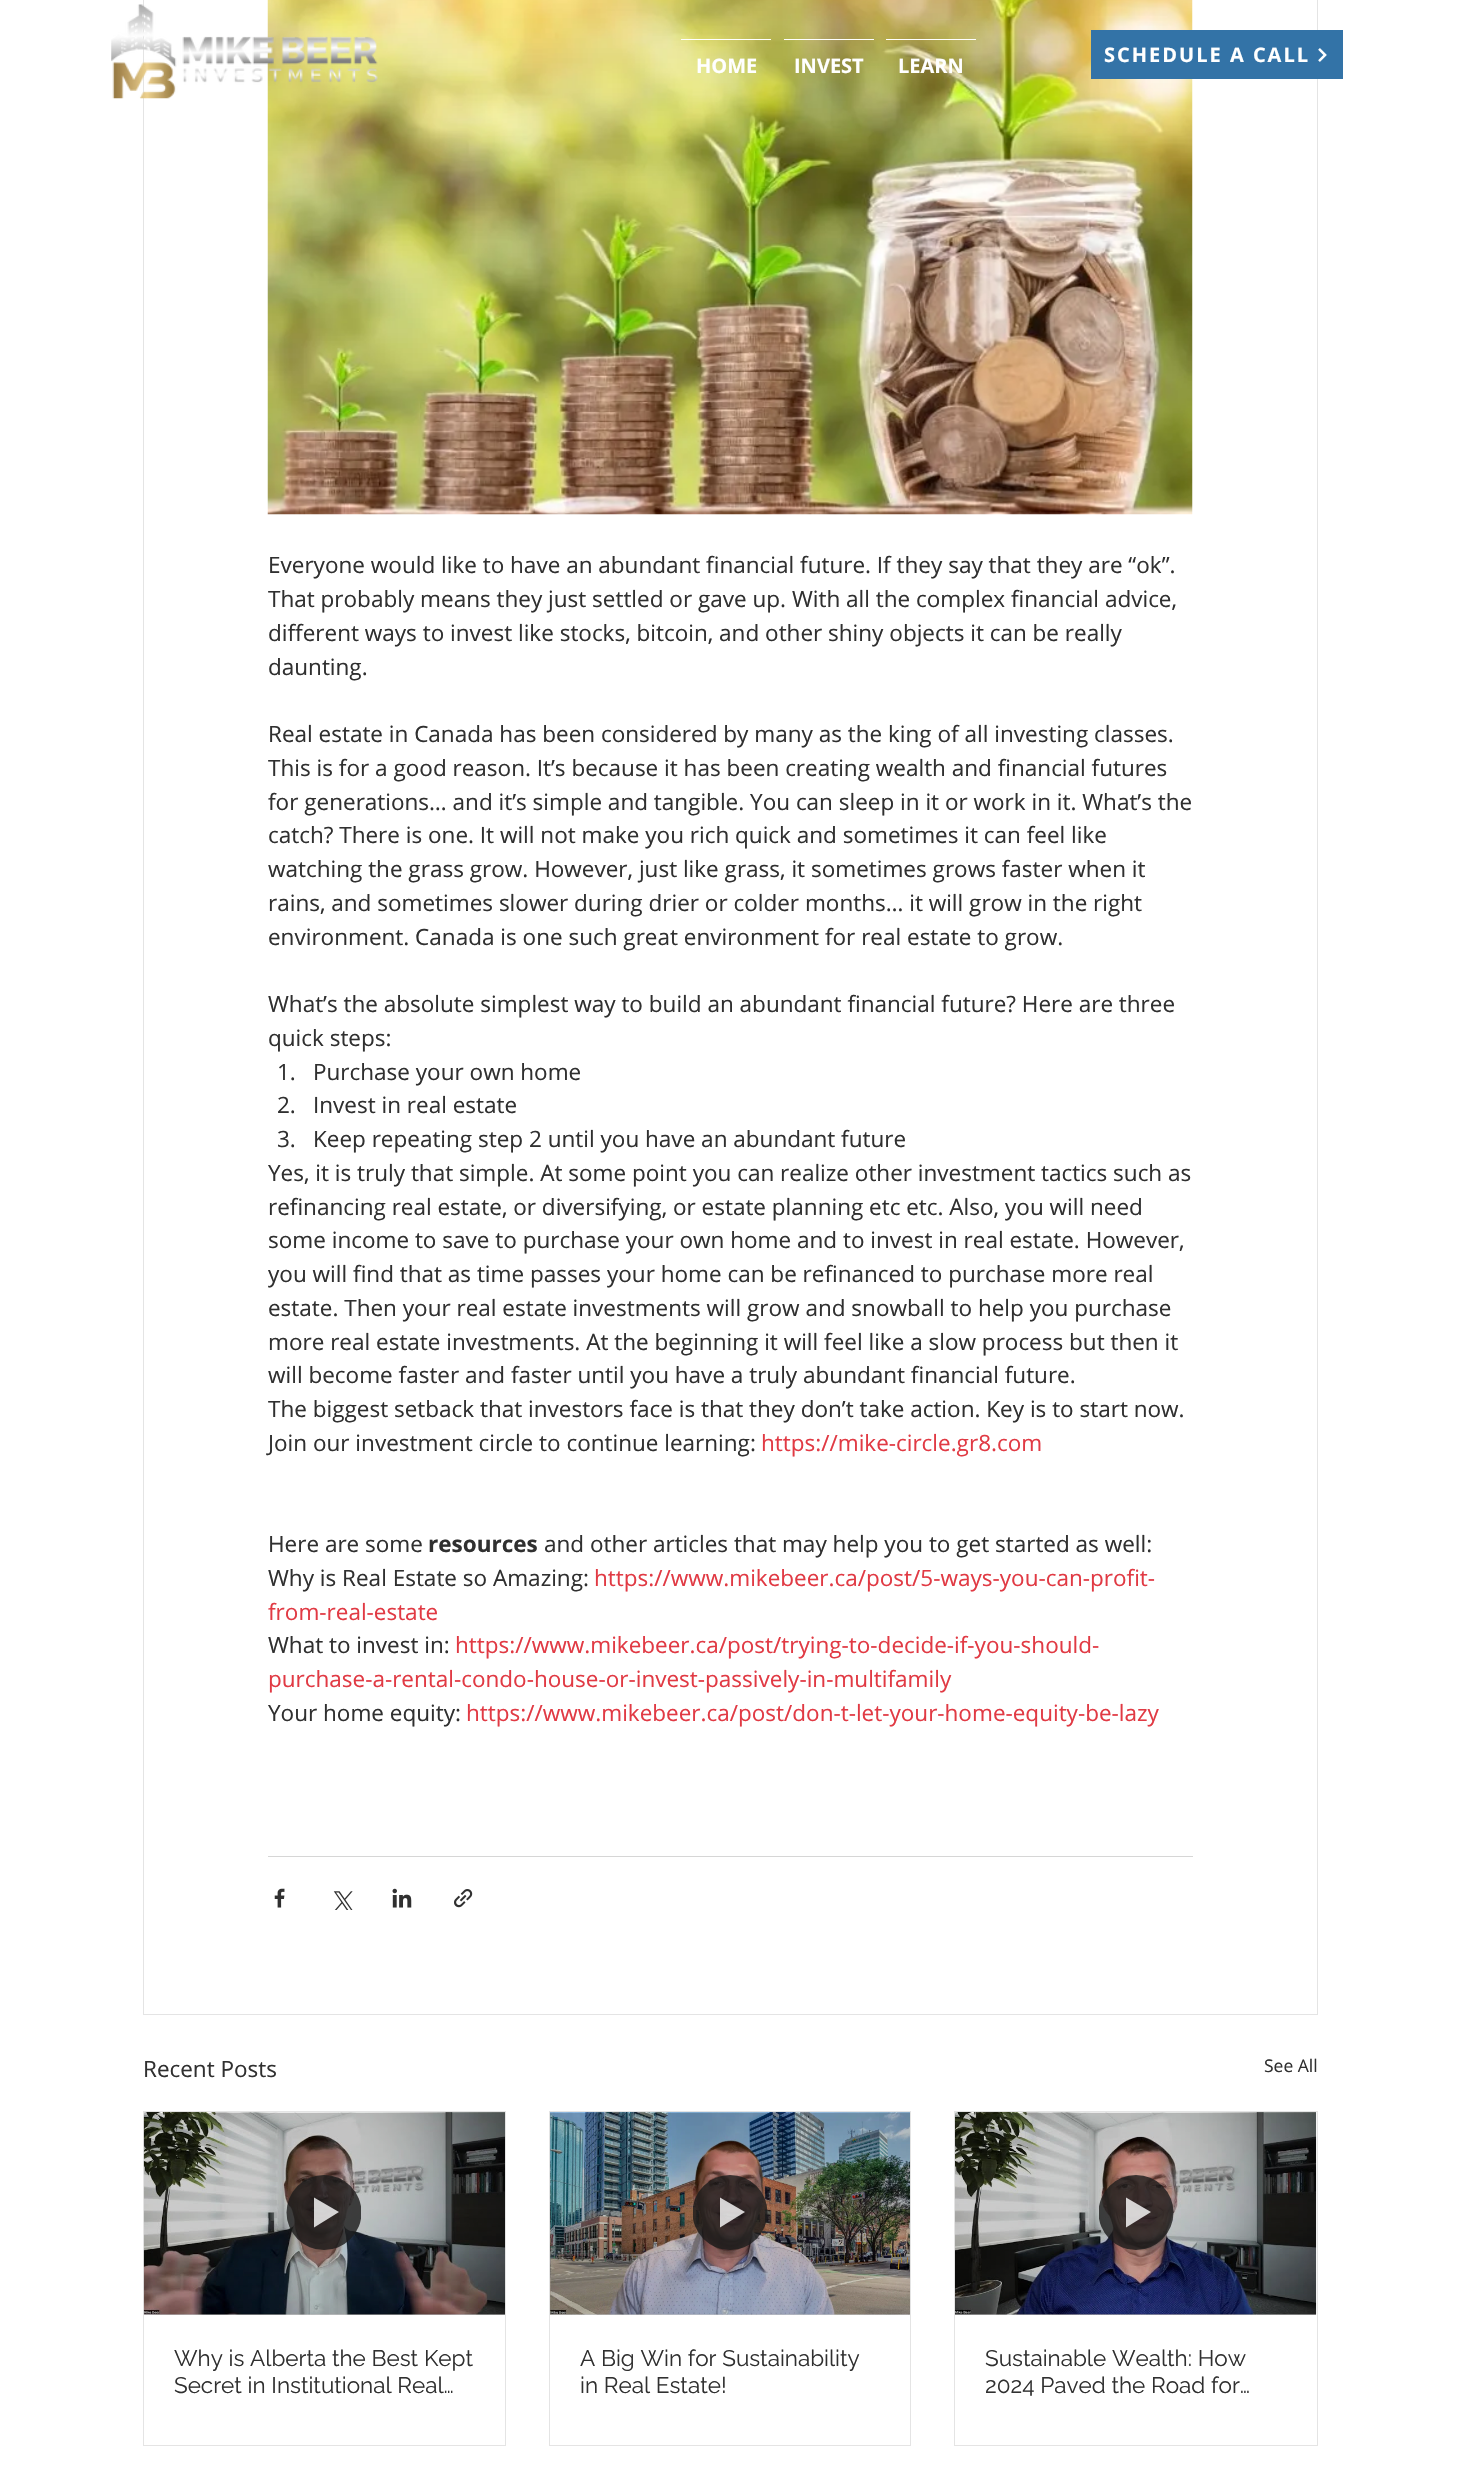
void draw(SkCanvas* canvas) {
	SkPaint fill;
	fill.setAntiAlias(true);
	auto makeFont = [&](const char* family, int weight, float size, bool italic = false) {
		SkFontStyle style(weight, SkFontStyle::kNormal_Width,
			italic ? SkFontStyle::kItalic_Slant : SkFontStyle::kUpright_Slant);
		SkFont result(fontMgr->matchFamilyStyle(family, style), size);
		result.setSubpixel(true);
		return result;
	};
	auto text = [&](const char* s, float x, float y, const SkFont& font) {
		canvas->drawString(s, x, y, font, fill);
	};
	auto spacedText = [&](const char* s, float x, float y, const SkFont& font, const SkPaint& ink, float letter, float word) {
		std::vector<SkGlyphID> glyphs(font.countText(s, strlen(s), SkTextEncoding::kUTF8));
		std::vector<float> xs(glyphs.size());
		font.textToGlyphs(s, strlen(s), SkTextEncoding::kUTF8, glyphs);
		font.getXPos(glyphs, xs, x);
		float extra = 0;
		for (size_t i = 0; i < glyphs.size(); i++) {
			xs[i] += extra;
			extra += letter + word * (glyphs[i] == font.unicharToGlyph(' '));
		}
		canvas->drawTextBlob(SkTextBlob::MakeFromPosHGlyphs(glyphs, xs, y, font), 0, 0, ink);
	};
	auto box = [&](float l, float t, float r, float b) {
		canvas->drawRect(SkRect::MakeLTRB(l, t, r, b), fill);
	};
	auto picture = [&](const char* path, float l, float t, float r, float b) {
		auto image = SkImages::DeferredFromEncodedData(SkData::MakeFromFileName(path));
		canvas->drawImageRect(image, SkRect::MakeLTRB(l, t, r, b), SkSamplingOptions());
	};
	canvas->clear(0xFFFFFFFF);
	fill.setColor(0xFFCCCCCC);
	box(955, 2314, 1316, 2315);
	box(550, 2314, 910, 2315);
	box(144, 2314, 505, 2315);
	fill.setStyle(SkPaint::kStroke_Style);
	fill.setStrokeWidth(1);
	fill.setColor(0xFFE4E4E4);
	canvas->drawRect(SkRect::MakeLTRB(143.5f, -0.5f, 1317.5f, 2014.5f), fill);
	picture("image2.png", 267, 0, 1193, 515);
	picture("image0.png", 111, 4, 378, 99);
	fill.setStyle(SkPaint::kFill_Style);
	fill.setColor(0xFF3373A7);
	box(1091, 30, 1343, 79);
	picture("image1.png", 1318, 48, 1327, 62);
	fill.setColor(0xFFFFFFFF);
	box(681, 39, 771, 40);
	box(784, 39, 874, 40);
	box(886, 39, 976, 40);
	fill.setColor(0xFFD6D6D6);
	box(268, 1856, 1193, 1857);
	picture("image3.png", 274, 1888, 285, 1908);
	picture("image4.png", 333, 1891, 353, 1910);
	picture("image5.png", 392, 1888, 412, 1908);
	picture("image6.png", 454, 1889, 473, 1908);
	fill.setStyle(SkPaint::kStroke_Style);
	fill.setColor(0xFFE4E4E4);
	canvas->drawRect(SkRect::MakeLTRB(143.5f, 2111.5f, 505.5f, 2445.5f), fill);
	picture("image7.png", 143, 2112, 505, 2315);
	canvas->save();
	canvas->clipRect(SkRect::MakeLTRB(286, 2175, 361, 2250));
	fill.setStyle(SkPaint::kFill_Style);
	fill.setColor(0xCC1A1A1A);
	canvas->drawCircle(324, 2212.5f, 37.5f, fill);
	canvas->restore();
	fill.setColor(0xCCFFFFFF);
	canvas->drawPath(SkPathBuilder().moveTo(314, 2197.5f).lineTo(314, 2227.5f).lineTo(339, 2212).close().detach(), fill);
	fill.setStyle(SkPaint::kStroke_Style);
	fill.setColor(0xFFE4E4E4);
	canvas->drawRect(SkRect::MakeLTRB(549.5f, 2111.5f, 910.5f, 2445.5f), fill);
	picture("image8.png", 550, 2112, 910, 2315);
	canvas->save();
	canvas->clipRect(SkRect::MakeLTRB(693, 2175, 768, 2250));
	fill.setStyle(SkPaint::kFill_Style);
	fill.setColor(0xCC1A1A1A);
	canvas->drawCircle(730, 2212.5f, 37.5f, fill);
	canvas->restore();
	fill.setColor(0xCCFFFFFF);
	canvas->drawPath(SkPathBuilder().moveTo(720, 2197.5f).lineTo(720, 2227.5f).lineTo(745, 2212).close().detach(), fill);
	fill.setStyle(SkPaint::kStroke_Style);
	fill.setColor(0xFFE4E4E4);
	canvas->drawRect(SkRect::MakeLTRB(954.5f, 2111.5f, 1317.5f, 2445.5f), fill);
	picture("image9.png", 955, 2112, 1317, 2315);
	canvas->save();
	canvas->clipRect(SkRect::MakeLTRB(1099, 2175, 1174, 2250));
	fill.setStyle(SkPaint::kFill_Style);
	fill.setColor(0xCC1A1A1A);
	canvas->drawCircle(1136, 2212.5f, 37.5f, fill);
	canvas->restore();
	fill.setColor(0xCCFFFFFF);
	canvas->drawPath(SkPathBuilder().moveTo(1126, 2197.5f).lineTo(1126, 2227.5f).lineTo(1151, 2212).close().detach(), fill);
	auto font1 = makeFont("Open Sans", 700, 20);
	fill.setColor(0xFFFFFFFF);
	spacedText("SCHEDULE A CALL", 1104, 62, font1, fill, 2, 0);
	text("HOME", 696, 73, font1);
	text("INVEST", 794, 73, font1);
	text("LEARN", 898, 73, font1);
	auto font2 = makeFont("Open Sans", 400, 22.5f);
	fill.setColor(0xFF303030);
	text("Everyone would like to have an abundant financial future. If they say that they are “ok”.", 268, 573, font2);
	text("That probably means they just settled or gave up. With all the complex financial advice,", 268, 607, font2);
	text("different ways to invest like stocks, bitcoin, and other shiny objects it can be really", 268, 641, font2);
	text("daunting.", 268, 675, font2);
	text("Real estate in Canada has been considered by many as the king of all investing classes.", 268, 742, font2);
	text("This is for a good reason. It’s because it has been creating wealth and financial futures", 268, 776, font2);
	text("for generations… and it’s simple and tangible. You can sleep in it or work in it. What’s the", 268, 810, font2);
	text("catch? There is one. It will not make you rich quick and sometimes it can feel like", 268, 843, font2);
	text("watching the grass grow. However, just like grass, it sometimes grows faster when it", 268, 877, font2);
	text("rains, and sometimes slower during drier or colder months… it will grow in the right", 268, 911, font2);
	text("environment. Canada is one such great environment for real estate to grow.", 268, 945, font2);
	text("What’s the absolute simplest way to build an abundant financial future? Here are three", 268, 1012, font2);
	text("quick steps:", 268, 1046, font2);
	text("1.", 277, 1080, font2);
	text("Purchase your own home", 313, 1080, font2);
	text("2.", 277, 1113, font2);
	text("Invest in real estate", 313, 1113, font2);
	text("3.", 277, 1147, font2);
	text("Keep repeating step 2 until you have an abundant future", 313, 1147, font2);
	text("Yes, it is truly that simple. At some point you can realize other investment tactics such as", 268, 1181, font2);
	text("refinancing real estate, or diversifying, or estate planning etc etc. Also, you will need", 268, 1215, font2);
	text("some income to save to purchase your own home and to invest in real estate. However,", 268, 1248, font2);
	text("you will find that as time passes your home can be refinanced to purchase more real", 268, 1282, font2);
	text("estate. Then your real estate investments will grow and snowball to help you purchase", 268, 1316, font2);
	text("more real estate investments. At the beginning it will feel like a slow process but then it", 268, 1350, font2);
	text("will become faster and faster until you have a truly abundant financial future.", 268, 1383, font2);
	text("The biggest setback that investors face is that they don’t take action. Key is to start now.", 268, 1417, font2);
	text("Join our investment circle to continue learning:", 268, 1451, font2);
	fill.setColor(0xFFE13A44);
	text("https://mike-circle.gr8.com", 761, 1451, font2);
	fill.setColor(0xFF303030);
	text("Here are some", 268, 1552, font2);
	auto font3 = makeFont("Open Sans", 700, 22.5f);
	text("resources", 428, 1552, font3);
	text("and other articles that may help you to get started as well:", 544, 1552, font2);
	text("Why is Real Estate so Amazing:", 268, 1586, font2);
	fill.setColor(0xFFE13A44);
	text("https://www.mikebeer.ca/post/5-ways-you-can-profit-", 594, 1586, font2);
	text("from-real-estate", 268, 1620, font2);
	fill.setColor(0xFF303030);
	text("What to invest in:", 268, 1653, font2);
	fill.setColor(0xFFE13A44);
	text("https://www.mikebeer.ca/post/trying-to-decide-if-you-should-", 455, 1653, font2);
	text("purchase-a-rental-condo-house-or-invest-passively-in-multifamily", 268, 1687, font2);
	fill.setColor(0xFF303030);
	text("Your home equity:", 268, 1721, font2);
	fill.setColor(0xFFE13A44);
	text("https://www.mikebeer.ca/post/don-t-let-your-home-equity-be-lazy", 466, 1721, font2);
	fill.setColor(0xFF303030);
	text("Recent Posts", 143, 2077, font2);
	auto font4 = makeFont("Open Sans", 400, 17.5f);
	text("See All", 1264, 2072, font4);
	auto font5 = makeFont("Raleway", 400, 22.5f);
	text("Why is Alberta the Best Kept", 174, 2366, font5);
	text("Secret in Institutional Real…", 174, 2393, font5);
	text("A Big Win for Sustainability", 580, 2366, font5);
	text("in Real Estate!", 580, 2393, font5);
	text("Sustainable Wealth: How", 985, 2366, font5);
	text("2024 Paved the Road for…", 985, 2393, font5);
}
